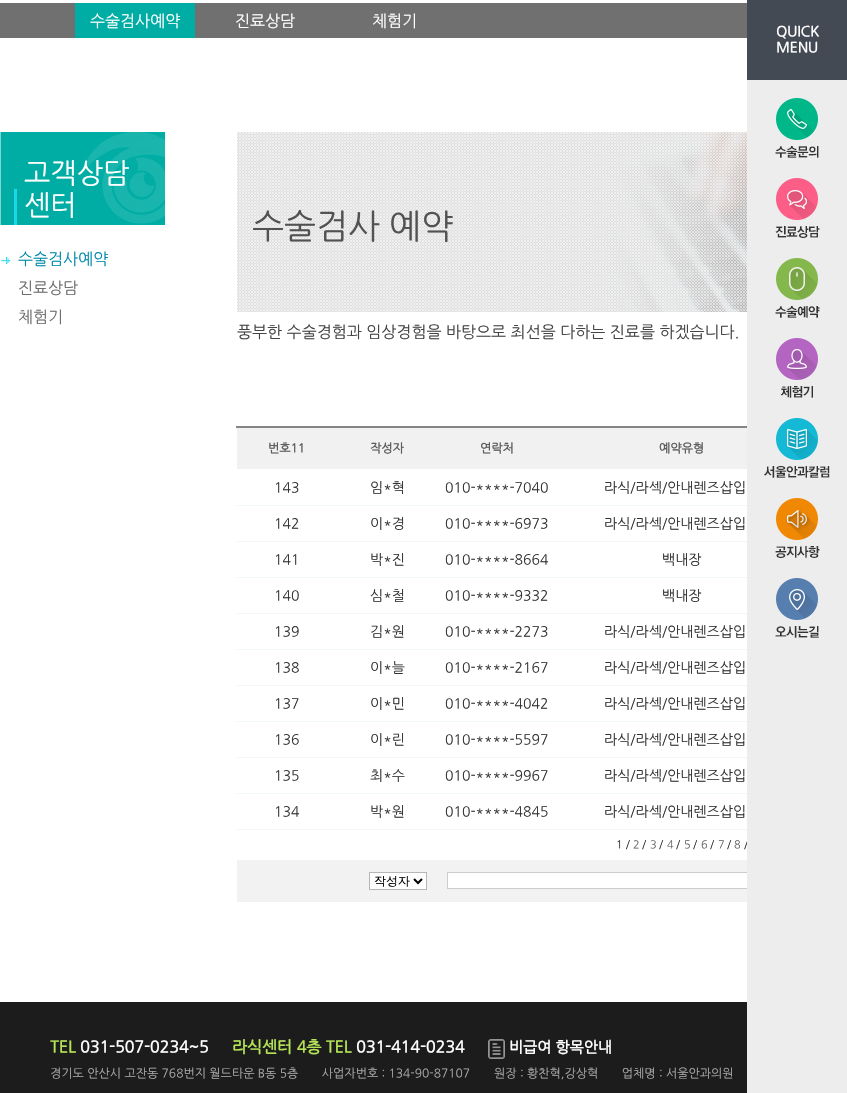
void draw(SkCanvas* canvas) {
	SkPaint fill;
	fill.setAntiAlias(true);
	auto makeFont = [&](const char* family, int weight, float size, bool italic = false) {
		SkFontStyle style(weight, SkFontStyle::kNormal_Width,
			italic ? SkFontStyle::kItalic_Slant : SkFontStyle::kUpright_Slant);
		SkFont result(fontMgr->matchFamilyStyle(family, style), size);
		result.setSubpixel(true);
		return result;
	};
	auto text = [&](const char* s, float x, float y, const SkFont& font) {
		canvas->drawString(s, x, y, font, fill);
	};
	auto box = [&](float l, float t, float r, float b) {
		canvas->drawRect(SkRect::MakeLTRB(l, t, r, b), fill);
	};
	auto picture = [&](const char* path, float l, float t, float r, float b) {
		auto image = SkImages::DeferredFromEncodedData(SkData::MakeFromFileName(path));
		canvas->drawImageRect(image, SkRect::MakeLTRB(l, t, r, b), SkSamplingOptions());
	};
	canvas->clear(0xFFFFFFFF);
	fill.setColor(0xFF707070);
	box(0, 3, 747, 38);
	fill.setColor(0xFF00ADA4);
	box(75, 3, 195, 38);
	fill.setColor(0xFF434A54);
	box(747, 0, 847, 80);
	picture("image7.png", 0, 132, 165, 225);
	picture("image8.png", 1, 257, 11, 264);
	picture("image9.png", 237, 132, 747, 312);
	fill.setColor(0xFFF1F1F1);
	box(237, 428, 747, 469);
	fill.setColor(0xFF858585);
	box(236, 426, 747, 428);
	fill.setColor(0xFFF1F7F9);
	box(237, 505, 747, 506);
	box(237, 541, 747, 542);
	box(237, 577, 747, 578);
	box(237, 613, 747, 614);
	box(237, 649, 747, 650);
	box(237, 685, 747, 686);
	box(237, 721, 747, 722);
	box(237, 757, 747, 758);
	box(237, 793, 747, 794);
	box(237, 829, 747, 830);
	fill.setColor(0xFFF2F2F2);
	box(237, 860, 747, 902);
	fill.setColor(0xFFFFFFFF);
	canvas->drawRect(SkRect::MakeLTRB(369.5f, 872.5f, 426.5f, 889.5f), fill);
	fill.setStyle(SkPaint::kStroke_Style);
	fill.setStrokeWidth(1);
	fill.setColor(0xFFB7B6B6);
	canvas->drawRect(SkRect::MakeLTRB(369.5f, 872.5f, 426.5f, 889.5f), fill);
	fill.setStrokeWidth(2);
	fill.setColor(0xFF000000);
	canvas->drawPath(SkPathBuilder().moveTo(414, 879).lineTo(418, 883).lineTo(422, 879).detach(), fill);
	fill.setStyle(SkPaint::kFill_Style);
	fill.setColor(0xFFFFFFFF);
	box(448, 873, 747, 888);
	fill.setStyle(SkPaint::kStroke_Style);
	fill.setStrokeWidth(1);
	fill.setColor(0xFFCCCCCC);
	canvas->drawRect(SkRect::MakeLTRB(447.5f, 872.5f, 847.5f, 888.5f), fill);
	fill.setStyle(SkPaint::kFill_Style);
	fill.setColor(0xFF1C1C1C);
	box(0, 1002, 747, 1093);
	picture("image10.png", 488, 1039, 505, 1059);
	auto font1 = makeFont("NanumGothic", 400, 16);
	fill.setColor(0xFFFFFFFF);
	text("수술검사예약", 90, 26, font1);
	text("진료상담", 235, 26, font1);
	text("체험기", 372, 26, font1);
	auto font2 = makeFont("NanumGothic", 700, 14);
	text("QUICK", 776, 36, font2);
	text("MENU", 776, 52, font2);
	auto font3 = makeFont("NanumGothic", 400, 28);
	text("고객상담", 24, 182, font3);
	text("센터", 24, 214, font3);
	fill.setColor(0xFF008AAA);
	text("수술검사예약", 18, 264, font1);
	fill.setColor(0xFF6D6D6D);
	text("진료상담", 18, 293, font1);
	text("체험기", 18, 322, font1);
	auto font4 = makeFont("NanumGothic", 400, 34);
	fill.setColor(0xFF525252);
	text("수술검사 예약", 252, 237, font4);
	fill.setColor(0xFF444444);
	text("풍부한 수술경험과 임상경험을 바탕으로 최선을 다하는 진료를 하겠습니다.", 237, 337, font1);
	auto font5 = makeFont("NanumGothic", 700, 12);
	fill.setColor(0xFF5D5D5D);
	text("번호11", 268, 452, font5);
	text("작성자", 370, 452, font5);
	text("연락처", 480, 452, font5);
	text("예약유형", 659, 452, font5);
	auto font6 = makeFont("NanumGothic", 400, 14);
	fill.setColor(0xFF333333);
	text("143", 274, 492, font6);
	text("임*혁", 370, 492, font6);
	text("010-****-7040", 445, 492, font6);
	text("라식/라섹/안내렌즈삽입", 604, 492, font6);
	text("142", 274, 528, font6);
	text("이*경", 370, 528, font6);
	text("010-****-6973", 445, 528, font6);
	text("라식/라섹/안내렌즈삽입", 604, 528, font6);
	text("141", 274, 564, font6);
	text("박*진", 370, 564, font6);
	text("010-****-8664", 445, 564, font6);
	text("백내장", 662, 564, font6);
	text("140", 274, 600, font6);
	text("심*철", 370, 600, font6);
	text("010-****-9332", 445, 600, font6);
	text("백내장", 662, 600, font6);
	text("139", 274, 636, font6);
	text("김*원", 370, 636, font6);
	text("010-****-2273", 445, 636, font6);
	text("라식/라섹/안내렌즈삽입", 604, 636, font6);
	text("138", 274, 672, font6);
	text("이*늘", 370, 672, font6);
	text("010-****-2167", 445, 672, font6);
	text("라식/라섹/안내렌즈삽입", 604, 672, font6);
	text("137", 274, 708, font6);
	text("이*민", 370, 708, font6);
	text("010-****-4042", 445, 708, font6);
	text("라식/라섹/안내렌즈삽입", 604, 708, font6);
	text("136", 274, 744, font6);
	text("이*린", 370, 744, font6);
	text("010-****-5597", 445, 744, font6);
	text("라식/라섹/안내렌즈삽입", 604, 744, font6);
	text("135", 274, 780, font6);
	text("최*수", 370, 780, font6);
	text("010-****-9967", 445, 780, font6);
	text("라식/라섹/안내렌즈삽입", 604, 780, font6);
	text("134", 274, 816, font6);
	text("박*원", 370, 816, font6);
	text("010-****-4845", 445, 816, font6);
	text("라식/라섹/안내렌즈삽입", 604, 816, font6);
	auto font7 = makeFont("NanumGothic", 400, 11);
	text("1 /", 616, 848, font7);
	fill.setColor(0xFF636363);
	text("2", 633, 848, font7);
	fill.setColor(0xFF333333);
	text("/", 642, 848, font7);
	fill.setColor(0xFF636363);
	text("3", 650, 848, font7);
	fill.setColor(0xFF333333);
	text("/", 659, 848, font7);
	fill.setColor(0xFF636363);
	text("4", 667, 848, font7);
	fill.setColor(0xFF333333);
	text("/", 676, 848, font7);
	fill.setColor(0xFF636363);
	text("5", 684, 848, font7);
	fill.setColor(0xFF333333);
	text("/", 693, 848, font7);
	fill.setColor(0xFF636363);
	text("6", 701, 848, font7);
	fill.setColor(0xFF333333);
	text("/", 710, 848, font7);
	fill.setColor(0xFF636363);
	text("7", 718, 848, font7);
	fill.setColor(0xFF333333);
	text("/", 727, 848, font7);
	fill.setColor(0xFF636363);
	text("8", 734, 848, font7);
	fill.setColor(0xFF333333);
	text("/", 744, 848, font7);
	fill.setColor(0xFFEDEDED);
	box(747, 80, 847, 1093);
	picture("image6.png", 775, 578, 819, 638);
	picture("image5.png", 775, 498, 820, 558);
	picture("image4.png", 764, 418, 830, 478);
	picture("image3.png", 776, 338, 818, 398);
	picture("image2.png", 775, 258, 820, 318);
	picture("image1.png", 775, 178, 820, 238);
	picture("image0.png", 775, 98, 819, 158);
	auto font8 = makeFont("WenQuanYi Zen Hei", 500, 12);
	fill.setColor(0xFF000000);
	text("작성자", 374, 885, font8);
	auto font9 = makeFont("NanumGothic", 700, 16);
	fill.setColor(0xFFB5E557);
	text("TEL", 50, 1052, font9);
	fill.setColor(0xFFFFFFFF);
	text("031-507-0234~5", 80, 1052, font9);
	fill.setColor(0xFFB5E557);
	text("라식센터 4층 TEL", 232, 1052, font9);
	fill.setColor(0xFFFFFFFF);
	text("031-414-0234", 356, 1052, font9);
	auto font10 = makeFont("NanumGothic", 700, 15);
	text("비급여 항목안내", 509, 1052, font10);
	auto font11 = makeFont("NanumGothic", 400, 12);
	fill.setColor(0xFFAAAAAA);
	text("경기도 안산시 고잔동 768번지 월드타운 B동 5층       사업자번호 : 134-90-87107", 50, 1077, font11);
	text("원장 : 황찬혁,강상혁       업체명 : 서울안과의원", 494, 1077, font11);
}
